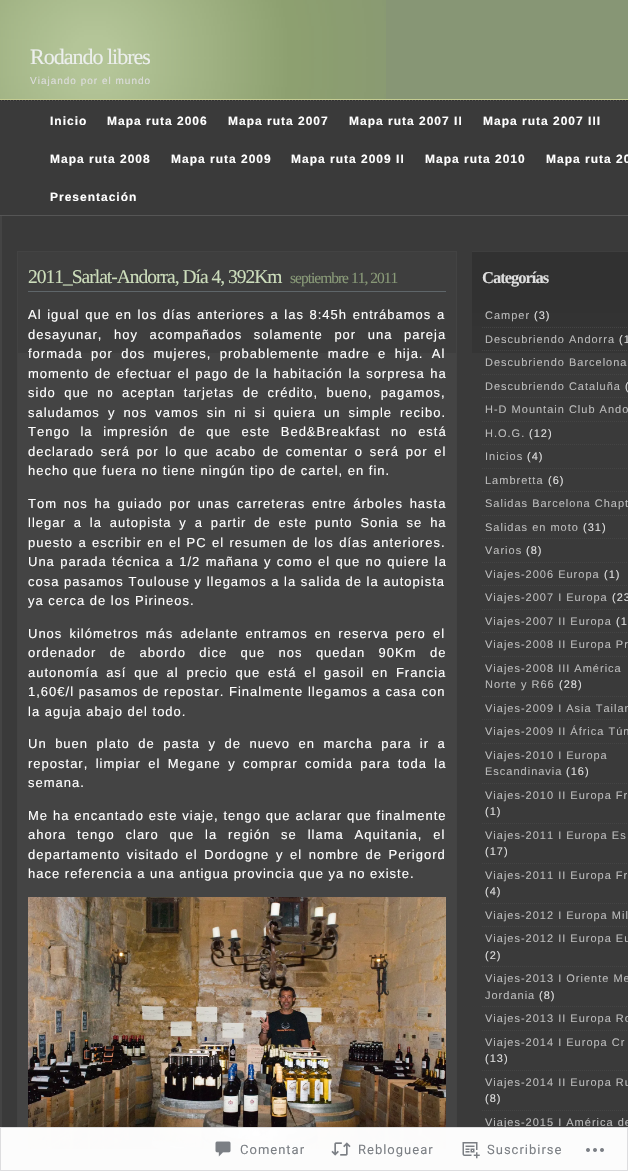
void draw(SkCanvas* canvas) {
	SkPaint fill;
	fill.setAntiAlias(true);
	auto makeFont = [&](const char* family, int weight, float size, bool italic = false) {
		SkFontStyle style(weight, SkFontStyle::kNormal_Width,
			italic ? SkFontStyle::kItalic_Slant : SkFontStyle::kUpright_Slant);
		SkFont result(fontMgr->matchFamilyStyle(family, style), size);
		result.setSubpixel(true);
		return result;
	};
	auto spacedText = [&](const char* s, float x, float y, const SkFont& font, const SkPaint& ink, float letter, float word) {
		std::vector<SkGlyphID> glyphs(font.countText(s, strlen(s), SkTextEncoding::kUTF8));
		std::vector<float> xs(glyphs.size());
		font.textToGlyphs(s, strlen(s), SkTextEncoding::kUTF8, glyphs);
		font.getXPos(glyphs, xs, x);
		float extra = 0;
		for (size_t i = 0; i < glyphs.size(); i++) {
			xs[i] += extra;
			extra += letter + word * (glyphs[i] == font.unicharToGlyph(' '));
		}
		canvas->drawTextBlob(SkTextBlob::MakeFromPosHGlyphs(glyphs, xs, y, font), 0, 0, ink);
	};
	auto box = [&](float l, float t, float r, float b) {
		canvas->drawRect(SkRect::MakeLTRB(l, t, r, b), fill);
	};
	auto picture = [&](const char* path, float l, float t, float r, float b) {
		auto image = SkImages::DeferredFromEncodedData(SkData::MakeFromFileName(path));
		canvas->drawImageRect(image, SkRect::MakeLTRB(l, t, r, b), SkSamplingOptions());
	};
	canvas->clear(0xFF2F2F2F);
	picture("image0.png", 1, 100, 626, 101);
	fill.setColor(0xFF879675);
	box(386, 0, 628, 99);
	picture("image1.png", 0, 0, 386, 99);
	fill.setColor(0xFFC4CC91);
	box(0, 99, 628, 100);
	fill.setColor(0xFF3A3A3A);
	box(0, 101, 628, 215);
	fill.setColor(0xFF555555);
	box(0, 215, 628, 216);
	fill.setColor(0xFF3A3A3A);
	box(2, 216, 628, 1149);
	fill.setColor(0xFF444444);
	box(0, 216, 2, 1149);
	box(18, 353, 456, 1149);
	fill.setColor(0xFF3E3E3E);
	box(18, 252, 456, 353);
	fill.setStyle(SkPaint::kStroke_Style);
	fill.setStrokeWidth(1);
	fill.setColor(0xFF434343);
	canvas->drawRect(SkRect::MakeLTRB(17.5f, 251.5f, 456.5f, 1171.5f), fill);
	fill.setStyle(SkPaint::kFill_Style);
	fill.setColor(0xFF5F666A);
	box(28, 291, 446, 292);
	picture("image2.png", 28, 897, 446, 1149);
	picture("image3.png", 472, 252, 628, 353);
	fill.setColor(0xFF3E3E3E);
	box(472, 251, 628, 252);
	fill.setStyle(SkPaint::kStroke_Style);
	fill.setColor(0xFF444444);
	fill.setPathEffect(SkDashPathEffect::Make({{1, 1}}, 0));
	canvas->drawPath(SkPathBuilder().moveTo(482, 327.5f).lineTo(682, 327.5f).detach(), fill);
	fill.setPathEffect(nullptr);
	fill.setPathEffect(SkDashPathEffect::Make({{1, 1}}, 0));
	canvas->drawPath(SkPathBuilder().moveTo(482, 350.5f).lineTo(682, 350.5f).detach(), fill);
	fill.setPathEffect(nullptr);
	fill.setPathEffect(SkDashPathEffect::Make({{1, 1}}, 0));
	canvas->drawPath(SkPathBuilder().moveTo(482, 374.5f).lineTo(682, 374.5f).detach(), fill);
	fill.setPathEffect(nullptr);
	fill.setPathEffect(SkDashPathEffect::Make({{1, 1}}, 0));
	canvas->drawPath(SkPathBuilder().moveTo(482, 397.5f).lineTo(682, 397.5f).detach(), fill);
	fill.setPathEffect(nullptr);
	fill.setPathEffect(SkDashPathEffect::Make({{1, 1}}, 0));
	canvas->drawPath(SkPathBuilder().moveTo(482, 421.5f).lineTo(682, 421.5f).detach(), fill);
	fill.setPathEffect(nullptr);
	fill.setPathEffect(SkDashPathEffect::Make({{1, 1}}, 0));
	canvas->drawPath(SkPathBuilder().moveTo(482, 444.5f).lineTo(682, 444.5f).detach(), fill);
	fill.setPathEffect(nullptr);
	fill.setPathEffect(SkDashPathEffect::Make({{1, 1}}, 0));
	canvas->drawPath(SkPathBuilder().moveTo(482, 468.5f).lineTo(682, 468.5f).detach(), fill);
	fill.setPathEffect(nullptr);
	fill.setPathEffect(SkDashPathEffect::Make({{1, 1}}, 0));
	canvas->drawPath(SkPathBuilder().moveTo(482, 491.5f).lineTo(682, 491.5f).detach(), fill);
	fill.setPathEffect(nullptr);
	fill.setPathEffect(SkDashPathEffect::Make({{1, 1}}, 0));
	canvas->drawPath(SkPathBuilder().moveTo(482, 515.5f).lineTo(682, 515.5f).detach(), fill);
	fill.setPathEffect(nullptr);
	fill.setPathEffect(SkDashPathEffect::Make({{1, 1}}, 0));
	canvas->drawPath(SkPathBuilder().moveTo(482, 538.5f).lineTo(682, 538.5f).detach(), fill);
	fill.setPathEffect(nullptr);
	fill.setPathEffect(SkDashPathEffect::Make({{1, 1}}, 0));
	canvas->drawPath(SkPathBuilder().moveTo(482, 562.5f).lineTo(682, 562.5f).detach(), fill);
	fill.setPathEffect(nullptr);
	fill.setPathEffect(SkDashPathEffect::Make({{1, 1}}, 0));
	canvas->drawPath(SkPathBuilder().moveTo(482, 585.5f).lineTo(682, 585.5f).detach(), fill);
	fill.setPathEffect(nullptr);
	fill.setPathEffect(SkDashPathEffect::Make({{1, 1}}, 0));
	canvas->drawPath(SkPathBuilder().moveTo(482, 609.5f).lineTo(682, 609.5f).detach(), fill);
	fill.setPathEffect(nullptr);
	fill.setPathEffect(SkDashPathEffect::Make({{1, 1}}, 0));
	canvas->drawPath(SkPathBuilder().moveTo(482, 632.5f).lineTo(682, 632.5f).detach(), fill);
	fill.setPathEffect(nullptr);
	fill.setPathEffect(SkDashPathEffect::Make({{1, 1}}, 0));
	canvas->drawPath(SkPathBuilder().moveTo(482, 656.5f).lineTo(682, 656.5f).detach(), fill);
	fill.setPathEffect(nullptr);
	fill.setPathEffect(SkDashPathEffect::Make({{1, 1}}, 0));
	canvas->drawPath(SkPathBuilder().moveTo(482, 696.5f).lineTo(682, 696.5f).detach(), fill);
	fill.setPathEffect(nullptr);
	fill.setPathEffect(SkDashPathEffect::Make({{1, 1}}, 0));
	canvas->drawPath(SkPathBuilder().moveTo(482, 719.5f).lineTo(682, 719.5f).detach(), fill);
	fill.setPathEffect(nullptr);
	fill.setPathEffect(SkDashPathEffect::Make({{1, 1}}, 0));
	canvas->drawPath(SkPathBuilder().moveTo(482, 743.5f).lineTo(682, 743.5f).detach(), fill);
	fill.setPathEffect(nullptr);
	fill.setPathEffect(SkDashPathEffect::Make({{1, 1}}, 0));
	canvas->drawPath(SkPathBuilder().moveTo(482, 783.5f).lineTo(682, 783.5f).detach(), fill);
	fill.setPathEffect(nullptr);
	fill.setPathEffect(SkDashPathEffect::Make({{1, 1}}, 0));
	canvas->drawPath(SkPathBuilder().moveTo(482, 823.5f).lineTo(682, 823.5f).detach(), fill);
	fill.setPathEffect(nullptr);
	fill.setPathEffect(SkDashPathEffect::Make({{1, 1}}, 0));
	canvas->drawPath(SkPathBuilder().moveTo(482, 863.5f).lineTo(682, 863.5f).detach(), fill);
	fill.setPathEffect(nullptr);
	fill.setPathEffect(SkDashPathEffect::Make({{1, 1}}, 0));
	canvas->drawPath(SkPathBuilder().moveTo(482, 903.5f).lineTo(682, 903.5f).detach(), fill);
	fill.setPathEffect(nullptr);
	fill.setPathEffect(SkDashPathEffect::Make({{1, 1}}, 0));
	canvas->drawPath(SkPathBuilder().moveTo(482, 926.5f).lineTo(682, 926.5f).detach(), fill);
	fill.setPathEffect(nullptr);
	fill.setPathEffect(SkDashPathEffect::Make({{1, 1}}, 0));
	canvas->drawPath(SkPathBuilder().moveTo(482, 966.5f).lineTo(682, 966.5f).detach(), fill);
	fill.setPathEffect(nullptr);
	fill.setPathEffect(SkDashPathEffect::Make({{1, 1}}, 0));
	canvas->drawPath(SkPathBuilder().moveTo(482, 1006.5f).lineTo(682, 1006.5f).detach(), fill);
	fill.setPathEffect(nullptr);
	fill.setPathEffect(SkDashPathEffect::Make({{1, 1}}, 0));
	canvas->drawPath(SkPathBuilder().moveTo(482, 1030.5f).lineTo(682, 1030.5f).detach(), fill);
	fill.setPathEffect(nullptr);
	fill.setPathEffect(SkDashPathEffect::Make({{1, 1}}, 0));
	canvas->drawPath(SkPathBuilder().moveTo(482, 1070.5f).lineTo(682, 1070.5f).detach(), fill);
	fill.setPathEffect(nullptr);
	fill.setPathEffect(SkDashPathEffect::Make({{1, 1}}, 0));
	canvas->drawPath(SkPathBuilder().moveTo(482, 1110.5f).lineTo(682, 1110.5f).detach(), fill);
	fill.setPathEffect(nullptr);
	fill.setStyle(SkPaint::kFill_Style);
	fill.setColor(0xFF434343);
	box(0, 1150, 628, 1171);
	fill.setColor(0xFF4F5158);
	box(0, 1149, 628, 1150);
	auto font1 = makeFont("Liberation Serif", 400, 22);
	fill.setColor(0xFFECEFED);
	spacedText("Rodando libres", 30, 64, font1, fill, -1, 0);
	auto font2 = makeFont("Liberation Sans", 400, 10);
	fill.setColor(0xFFDDDDDD);
	spacedText("Viajando por el mundo", 30, 84, font2, fill, 1, 0);
	auto font3 = makeFont("Liberation Sans", 700, 12);
	fill.setColor(0xFFFFFFFF);
	spacedText("Inicio", 50, 125, font3, fill, 1, 0);
	spacedText("Mapa ruta 2006", 107, 125, font3, fill, 1, 0);
	spacedText("Mapa ruta 2007", 228, 125, font3, fill, 1, 0);
	spacedText("Mapa ruta 2007 II", 349, 125, font3, fill, 1, 0);
	spacedText("Mapa ruta 2007 III", 483, 125, font3, fill, 1, 0);
	spacedText("Mapa ruta 2008", 50, 163, font3, fill, 1, 0);
	spacedText("Mapa ruta 2009", 171, 163, font3, fill, 1, 0);
	spacedText("Mapa ruta 2009 II", 291, 163, font3, fill, 1, 0);
	spacedText("Mapa ruta 2010", 425, 163, font3, fill, 1, 0);
	spacedText("Mapa ruta 20", 546, 163, font3, fill, 1, 0);
	spacedText("Presentación", 50, 201, font3, fill, 1, 0);
	auto font4 = makeFont("Liberation Serif", 400, 19.5f);
	fill.setColor(0xFFCCDDBB);
	spacedText("2011_Sarlat-Andorra, Día 4, 392Km", 28, 283, font4, fill, -1, 0);
	auto font5 = makeFont("Liberation Serif", 400, 15.5f);
	fill.setColor(0xFF889977);
	spacedText("septiembre 11, 2011", 290, 283, font5, fill, -1, 0);
	auto font6 = makeFont("Liberation Sans", 400, 13);
	fill.setColor(0xFFFFFFFF);
	spacedText("Al igual que en los días anteriores a las 8:45h entrábamos a", 28, 319, font6, fill, 1, 1);
	spacedText("desayunar, hoy acompañados solamente por una pareja", 28, 339, font6, fill, 1, 7);
	spacedText("formada por dos mujeres, probablemente madre e hija. Al", 28, 358, font6, fill, 1, 3.75f);
	spacedText("momento de efectuar el pago de la habitación la sorpresa ha", 28, 378, font6, fill, 1, 1);
	spacedText("sido que no aceptan tarjetas de crédito, bueno, pagamos,", 28, 397, font6, fill, 1, 3.75f);
	spacedText("saludamos y nos vamos sin ni si quiera un simple recibo.", 28, 417, font6, fill, 1, 3.4f);
	spacedText("Tengo la impresión de que este Bed&Breakfast no está", 28, 436, font6, fill, 1, 6);
	spacedText("declarado será por lo que acabo de comentar o será por el", 28, 456, font6, fill, 1, 2.1f);
	spacedText("hecho que fuera no tiene ningún tipo de cartel, en fin.", 28, 475, font6, fill, 1, 0);
	spacedText("Tom nos ha guiado por unas carreteras entre árboles hasta", 28, 508, font6, fill, 1, 2.1f);
	spacedText("llegar a la autopista y a partir de este punto Sonia se ha", 28, 527, font6, fill, 1, 3.25f);
	spacedText("puesto a escribir en el PC el resumen de los días anteriores.", 28, 547, font6, fill, 1, 0.75f);
	spacedText("Una parada técnica a 1/2 mañana y como el que no quiere la", 28, 566, font6, fill, 1, 0.75f);
	spacedText("cosa pasamos Toulouse y llegamos a la salida de la autopista", 28, 586, font6, fill, 1, 0);
	spacedText("ya cerca de los Pirineos.", 28, 605, font6, fill, 1, 0);
	spacedText("Unos kilómetros más adelante entramos en reserva pero el", 28, 638, font6, fill, 1, 2.5f);
	spacedText("ordenador de abordo dice que nos quedan 90Km de", 28, 657, font6, fill, 1, 8.75f);
	spacedText("autonomía así que al precio que está el gasoil en Francia", 28, 677, font6, fill, 1, 3.1f);
	spacedText("1,60€/l pasamos de repostar. Finalmente llegamos a casa con", 28, 696, font6, fill, 1, 0);
	spacedText("la aguja abajo del todo.", 28, 716, font6, fill, 1, 0);
	spacedText("Un buen plato de pasta y de nuevo en marcha para ir a", 28, 748, font6, fill, 1, 3.9f);
	spacedText("repostar, limpiar el Megane y comprar comida para toda la", 28, 768, font6, fill, 1, 2.75f);
	spacedText("semana.", 28, 787, font6, fill, 1, 0);
	spacedText("Me ha encantado este viaje, tengo que aclarar que finalmente", 28, 820, font6, fill, 1, 0.25f);
	spacedText("ahora tengo claro que la región se llama Aquitania, el", 28, 839, font6, fill, 1, 6.25f);
	spacedText("departamento visitado el Dordogne y el nombre de Perigord", 28, 859, font6, fill, 1, 2);
	spacedText("hace referencia a una antigua provincia que ya no existe.", 28, 878, font6, fill, 1, 0);
	auto font7 = makeFont("Liberation Serif", 700, 16.5f);
	fill.setColor(0xFFDDDDDD);
	spacedText("Categorías", 482, 283, font7, fill, -1, 0);
	auto font8 = makeFont("Liberation Sans", 400, 11);
	fill.setColor(0xFFBBBBBB);
	spacedText("Camper", 485, 319, font8, fill, 1, 0);
	fill.setColor(0xFFDDDDDD);
	spacedText("(3)", 534, 319, font8, fill, 1, 0);
	fill.setColor(0xFFBBBBBB);
	spacedText("Descubriendo Andorra", 485, 343, font8, fill, 1, 0);
	fill.setColor(0xFFDDDDDD);
	spacedText("(1", 619, 343, font8, fill, 1, 0);
	fill.setColor(0xFFBBBBBB);
	spacedText("Descubriendo Barcelona", 485, 366, font8, fill, 1, 0);
	spacedText("Descubriendo Cataluña", 485, 390, font8, fill, 1, 0);
	fill.setColor(0xFFDDDDDD);
	spacedText("(", 625, 390, font8, fill, 1, 0);
	fill.setColor(0xFFBBBBBB);
	spacedText("H-D Mountain Club Ando", 485, 413, font8, fill, 1, 0);
	spacedText("H.O.G.", 485, 437, font8, fill, 1, 0);
	fill.setColor(0xFFDDDDDD);
	spacedText("(12)", 529, 437, font8, fill, 1, 0);
	fill.setColor(0xFFBBBBBB);
	spacedText("Inicios", 485, 460, font8, fill, 1, 0);
	fill.setColor(0xFFDDDDDD);
	spacedText("(4)", 527, 460, font8, fill, 1, 0);
	fill.setColor(0xFFBBBBBB);
	spacedText("Lambretta", 485, 484, font8, fill, 1, 0);
	fill.setColor(0xFFDDDDDD);
	spacedText("(6)", 548, 484, font8, fill, 1, 0);
	fill.setColor(0xFFBBBBBB);
	spacedText("Salidas Barcelona Chapt", 485, 507, font8, fill, 1, 0);
	spacedText("Salidas en moto", 485, 531, font8, fill, 1, 0);
	fill.setColor(0xFFDDDDDD);
	spacedText("(31)", 583, 531, font8, fill, 1, 0);
	fill.setColor(0xFFBBBBBB);
	spacedText("Varios", 485, 554, font8, fill, 1, 0);
	fill.setColor(0xFFDDDDDD);
	spacedText("(8)", 526, 554, font8, fill, 1, 0);
	fill.setColor(0xFFBBBBBB);
	spacedText("Viajes-2006 Europa", 485, 578, font8, fill, 1, 0);
	fill.setColor(0xFFDDDDDD);
	spacedText("(1)", 604, 578, font8, fill, 1, 0);
	fill.setColor(0xFFBBBBBB);
	spacedText("Viajes-2007 I Europa", 485, 601, font8, fill, 1, 0);
	fill.setColor(0xFFDDDDDD);
	spacedText("(23", 612, 601, font8, fill, 1, 0);
	fill.setColor(0xFFBBBBBB);
	spacedText("Viajes-2007 II Europa", 485, 625, font8, fill, 1, 0);
	fill.setColor(0xFFDDDDDD);
	spacedText("(1", 616, 625, font8, fill, 1, 0);
	fill.setColor(0xFFBBBBBB);
	spacedText("Viajes-2008 II Europa Pr", 485, 648, font8, fill, 1, 0);
	spacedText("Viajes-2008 III América", 485, 672, font8, fill, 1, 0);
	spacedText("Norte y R66", 485, 688, font8, fill, 1, 0);
	fill.setColor(0xFFDDDDDD);
	spacedText("(28)", 559, 688, font8, fill, 1, 0);
	fill.setColor(0xFFBBBBBB);
	spacedText("Viajes-2009 I Asia Tailan", 485, 712, font8, fill, 1, 0);
	spacedText("Viajes-2009 II África Tún", 485, 735, font8, fill, 1, 0);
	spacedText("Viajes-2010 I Europa", 485, 759, font8, fill, 1, 0);
	spacedText("Escandinavia", 485, 775, font8, fill, 1, 0);
	fill.setColor(0xFFDDDDDD);
	spacedText("(16)", 566, 775, font8, fill, 1, 0);
	fill.setColor(0xFFBBBBBB);
	spacedText("Viajes-2010 II Europa Fr", 485, 799, font8, fill, 1, 0);
	fill.setColor(0xFFDDDDDD);
	spacedText("(1)", 485, 815, font8, fill, 1, 0);
	fill.setColor(0xFFBBBBBB);
	spacedText("Viajes-2011 I Europa Es", 485, 839, font8, fill, 1, 0);
	fill.setColor(0xFFDDDDDD);
	spacedText("(17)", 485, 855, font8, fill, 1, 0);
	fill.setColor(0xFFBBBBBB);
	spacedText("Viajes-2011 II Europa Fr", 485, 879, font8, fill, 1, 0);
	fill.setColor(0xFFDDDDDD);
	spacedText("(4)", 485, 895, font8, fill, 1, 0);
	fill.setColor(0xFFBBBBBB);
	spacedText("Viajes-2012 I Europa Mil", 485, 919, font8, fill, 1, 0);
	spacedText("Viajes-2012 II Europa Eu", 485, 942, font8, fill, 1, 0);
	fill.setColor(0xFFDDDDDD);
	spacedText("(2)", 485, 959, font8, fill, 1, 0);
	fill.setColor(0xFFBBBBBB);
	spacedText("Viajes-2013 I Oriente Me", 485, 982, font8, fill, 1, 0);
	spacedText("Jordania", 485, 999, font8, fill, 1, 0);
	fill.setColor(0xFFDDDDDD);
	spacedText("(8)", 539, 999, font8, fill, 1, 0);
	fill.setColor(0xFFBBBBBB);
	spacedText("Viajes-2013 II Europa Ro", 485, 1022, font8, fill, 1, 0);
	spacedText("Viajes-2014 I Europa Cr", 485, 1046, font8, fill, 1, 0);
	fill.setColor(0xFFDDDDDD);
	spacedText("(13)", 485, 1062, font8, fill, 1, 0);
	fill.setColor(0xFFBBBBBB);
	spacedText("Viajes-2014 II Europa Ru", 485, 1086, font8, fill, 1, 0);
	fill.setColor(0xFFDDDDDD);
	spacedText("(8)", 485, 1102, font8, fill, 1, 0);
	fill.setColor(0xFFBBBBBB);
	spacedText("Viajes-2015 I América de", 485, 1126, font8, fill, 1, 0);
	fill.setColor(0xFAFFFFFF);
	box(0, 1127, 628, 1171);
	fill.setStyle(SkPaint::kStroke_Style);
	fill.setColor(0xFADCDCDE);
	canvas->drawRect(SkRect::MakeLTRB(0.5f, 1127.5f, 627.5f, 1170.5f), fill);
	picture("image4.png", 215, 1141, 231, 1157);
	auto font9 = makeFont("Roboto", 400, 13);
	fill.setStyle(SkPaint::kFill_Style);
	fill.setColor(0xFF7B7F84);
	spacedText("Comentar", 240, 1154, font9, fill, 1, 0);
	picture("image5.png", 331, 1142, 351, 1156);
	spacedText("Rebloguear", 358, 1154, font9, fill, 1, 0);
	picture("image6.png", 462, 1142, 480, 1159);
	spacedText("Suscribirse", 487, 1154, font9, fill, 1, 0);
	picture("image7.png", 586, 1148, 604, 1152);
}
